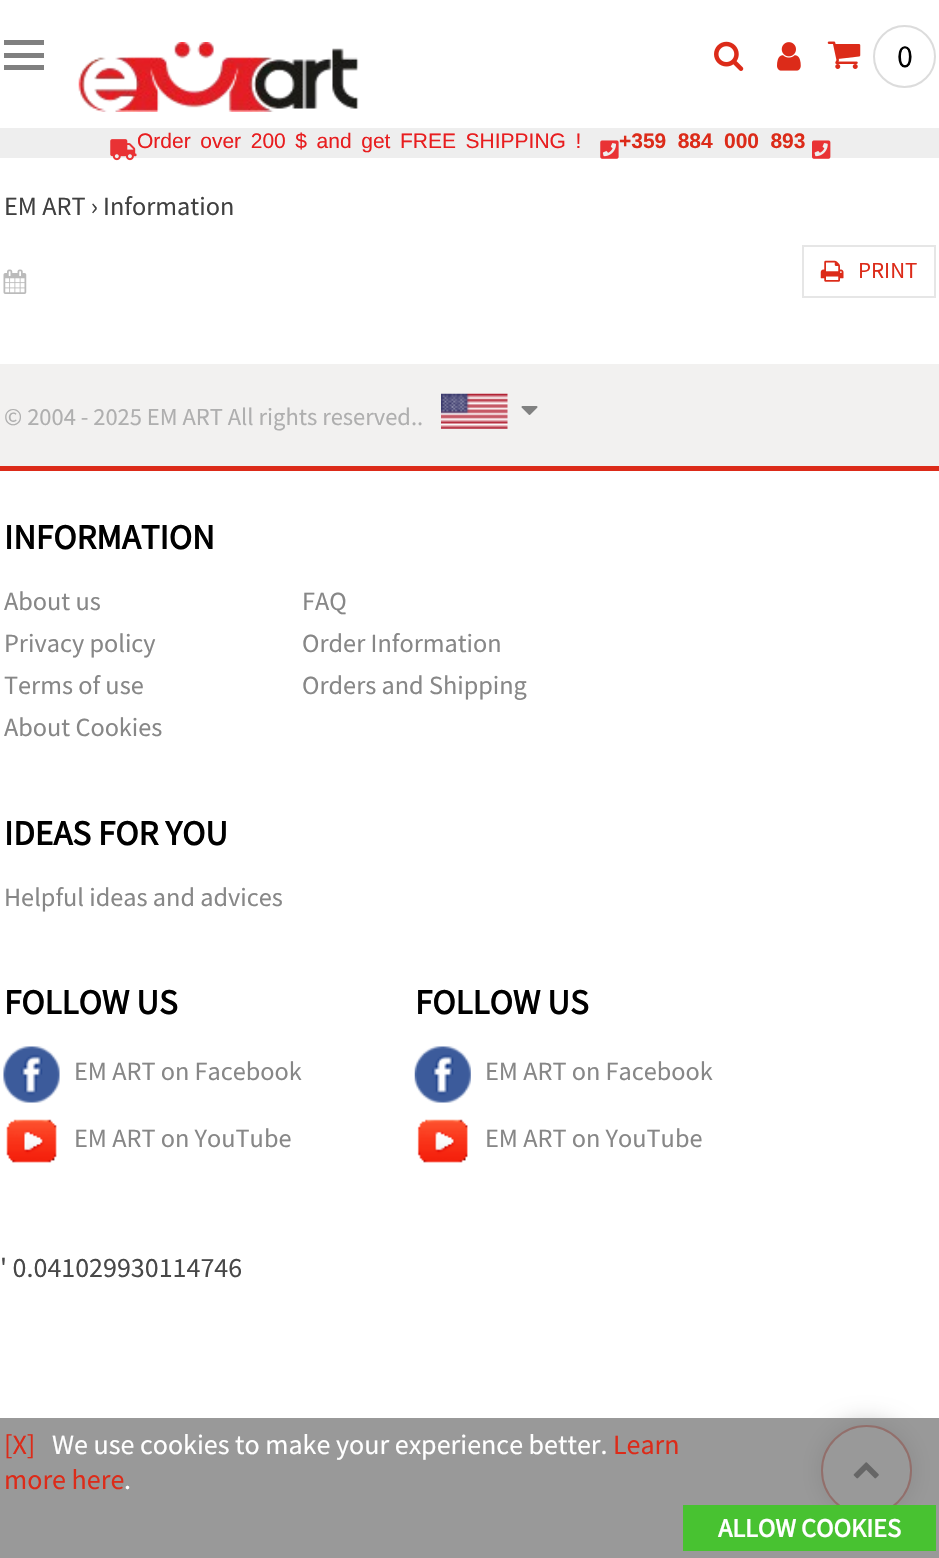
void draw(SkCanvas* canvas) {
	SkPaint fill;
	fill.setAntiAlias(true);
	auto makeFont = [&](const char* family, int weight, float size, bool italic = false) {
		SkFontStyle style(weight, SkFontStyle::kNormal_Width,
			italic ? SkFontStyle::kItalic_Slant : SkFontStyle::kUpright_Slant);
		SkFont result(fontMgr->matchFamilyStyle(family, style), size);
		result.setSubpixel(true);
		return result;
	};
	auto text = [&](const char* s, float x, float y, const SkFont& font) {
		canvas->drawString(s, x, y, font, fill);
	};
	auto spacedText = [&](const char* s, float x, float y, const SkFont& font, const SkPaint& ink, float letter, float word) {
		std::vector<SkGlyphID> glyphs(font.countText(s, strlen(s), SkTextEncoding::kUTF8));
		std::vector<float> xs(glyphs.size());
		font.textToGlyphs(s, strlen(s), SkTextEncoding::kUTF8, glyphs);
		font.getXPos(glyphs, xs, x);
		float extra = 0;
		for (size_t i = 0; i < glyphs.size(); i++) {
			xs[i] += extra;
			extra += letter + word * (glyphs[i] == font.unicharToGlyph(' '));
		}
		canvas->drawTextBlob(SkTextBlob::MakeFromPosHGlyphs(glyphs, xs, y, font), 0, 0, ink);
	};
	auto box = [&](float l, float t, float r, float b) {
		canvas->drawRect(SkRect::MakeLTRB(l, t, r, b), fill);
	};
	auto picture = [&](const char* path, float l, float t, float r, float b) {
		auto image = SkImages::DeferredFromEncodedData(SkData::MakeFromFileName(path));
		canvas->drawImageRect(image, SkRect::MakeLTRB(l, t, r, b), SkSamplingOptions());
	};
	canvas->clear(0xFFFFFFFF);
	fill.setColor(0xFF808080);
	box(4, 53, 44, 58);
	box(4, 40, 44, 45);
	box(4, 65, 44, 70);
	picture("image0.png", 78, 42, 359, 112);
	picture("image1.png", 714, 41, 744, 71);
	picture("image2.png", 777, 42, 801, 71);
	picture("image3.png", 827, 41, 861, 69);
	fill.setStyle(SkPaint::kStroke_Style);
	fill.setStrokeWidth(2);
	fill.setColor(0xFFDCDCDC);
	canvas->drawCircle(904.5f, 56.5f, 30.5f, fill);
	fill.setStyle(SkPaint::kFill_Style);
	fill.setColor(0xFFEEEEEE);
	box(0, 128, 939, 158);
	picture("image4.png", 110, 139, 137, 161);
	picture("image5.png", 600, 140, 619, 159);
	picture("image6.png", 812, 140, 831, 159);
	picture("image7.png", 3, 269, 27, 294);
	fill.setStyle(SkPaint::kStroke_Style);
	fill.setColor(0xFFE6E6E6);
	canvas->drawRect(SkRect::MakeLTRB(803, 246, 935, 297), fill);
	picture("image8.png", 820, 260, 844, 282);
	fill.setStyle(SkPaint::kFill_Style);
	fill.setColor(0xFFF2F1F0);
	box(0, 364, 939, 466);
	fill.setColor(0xFFDC2B19);
	box(0, 466, 939, 471);
	picture("image9.png", 441, 393, 508, 429);
	picture("image10.png", 521, 406, 538, 415);
	picture("image11.png", 3, 1046, 60, 1103);
	picture("image12.png", 6, 1119, 57, 1163);
	picture("image13.png", 414, 1046, 471, 1103);
	picture("image14.png", 417, 1119, 468, 1163);
	fill.setColor(0x4D000000);
	fill.setMaskFilter(SkMaskFilter::MakeBlur(kNormal_SkBlurStyle, 13));
	canvas->drawRoundRect(SkRect::MakeLTRB(821, 1425, 912, 1516), 45.5f, 45.5f, fill);
	fill.setMaskFilter(nullptr);
	fill.setColor(0xFFFFFFFF);
	canvas->drawCircle(866.5f, 1470.5f, 44.5f, fill);
	fill.setStyle(SkPaint::kStroke_Style);
	fill.setColor(0xFFDC2B19);
	canvas->drawCircle(866.5f, 1470.5f, 44.5f, fill);
	picture("image15.png", 853, 1462, 879, 1479);
	fill.setStyle(SkPaint::kFill_Style);
	fill.setColor(0xCC7F7F7F);
	box(0, 1418, 939, 1558);
	fill.setColor(0xFF48C231);
	box(683, 1505, 936, 1551);
	auto font1 = makeFont("Source Sans Pro", 400, 32);
	fill.setColor(0xFF000000);
	text("0", 897, 67, font1);
	auto font2 = makeFont("Liberation Sans", 400, 21);
	fill.setColor(0xFFE81D1F);
	spacedText("Order over 200 $ and get FREE SHIPPING !", 137, 148, font2, fill, 0, 3.75f);
	auto font3 = makeFont("Liberation Sans", 700, 21);
	fill.setColor(0xFFDC2B19);
	spacedText("+359 884 000 893", 619, 148, font3, fill, 0, 5.5f);
	auto font4 = makeFont("Source Sans Pro", 400, 26.25f);
	fill.setColor(0xFF404040);
	text("EM ART › Information", 4, 215, font4);
	auto font5 = makeFont("Source Sans Pro", 400, 23);
	fill.setColor(0xFFDC2B19);
	text("PRINT", 858, 278, font5);
	auto font6 = makeFont("Source Sans Pro", 400, 24.5f);
	fill.setColor(0xFFAFAFAF);
	text("© 2004 - 2025 EM ART All rights reserved..", 4, 425, font6);
	auto font7 = makeFont("Source Sans Pro", 700, 35);
	fill.setColor(0xFF000000);
	text("INFORMATION", 4, 549, font7);
	fill.setColor(0xFF878787);
	text("About us", 4, 610, font4);
	text("Privacy policy", 4, 652, font4);
	text("Terms of use", 4, 694, font4);
	text("About Cookies", 4, 736, font4);
	text("FAQ", 302, 610, font4);
	text("Order Information", 302, 652, font4);
	text("Orders and Shipping", 302, 694, font4);
	fill.setColor(0xFF000000);
	text("IDEAS FOR YOU", 4, 845, font7);
	fill.setColor(0xFF878787);
	text("Helpful ideas and advices", 4, 906, font4);
	fill.setColor(0xFF000000);
	text("FOLLOW US", 4, 1014, font7);
	fill.setColor(0xFF878787);
	text("EM ART on Facebook", 74, 1080, font4);
	text("EM ART on YouTube", 74, 1147, font4);
	fill.setColor(0xFF000000);
	text("FOLLOW US", 415, 1014, font7);
	fill.setColor(0xFF878787);
	text("EM ART on Facebook", 485, 1080, font4);
	text("EM ART on YouTube", 485, 1147, font4);
	auto font8 = makeFont("Source Sans Pro", 400, 28);
	fill.setColor(0xFF484848);
	text("' 0.041029930114746", 0, 1277, font8);
	fill.setColor(0xFFDC2B19);
	text("[X]", 4, 1454, font8);
	fill.setColor(0xFFFFFFFF);
	text("We use cookies to make your experience better.", 52, 1454, font8);
	fill.setColor(0xFFDC2B19);
	text("Learn", 613, 1454, font8);
	text("more here", 4, 1489, font8);
	fill.setColor(0xFFFFFFFF);
	text(".", 124, 1489, font8);
	auto font9 = makeFont("Source Sans Pro", 700, 26.25f);
	text("ALLOW COOKIES", 718, 1537, font9);
}
